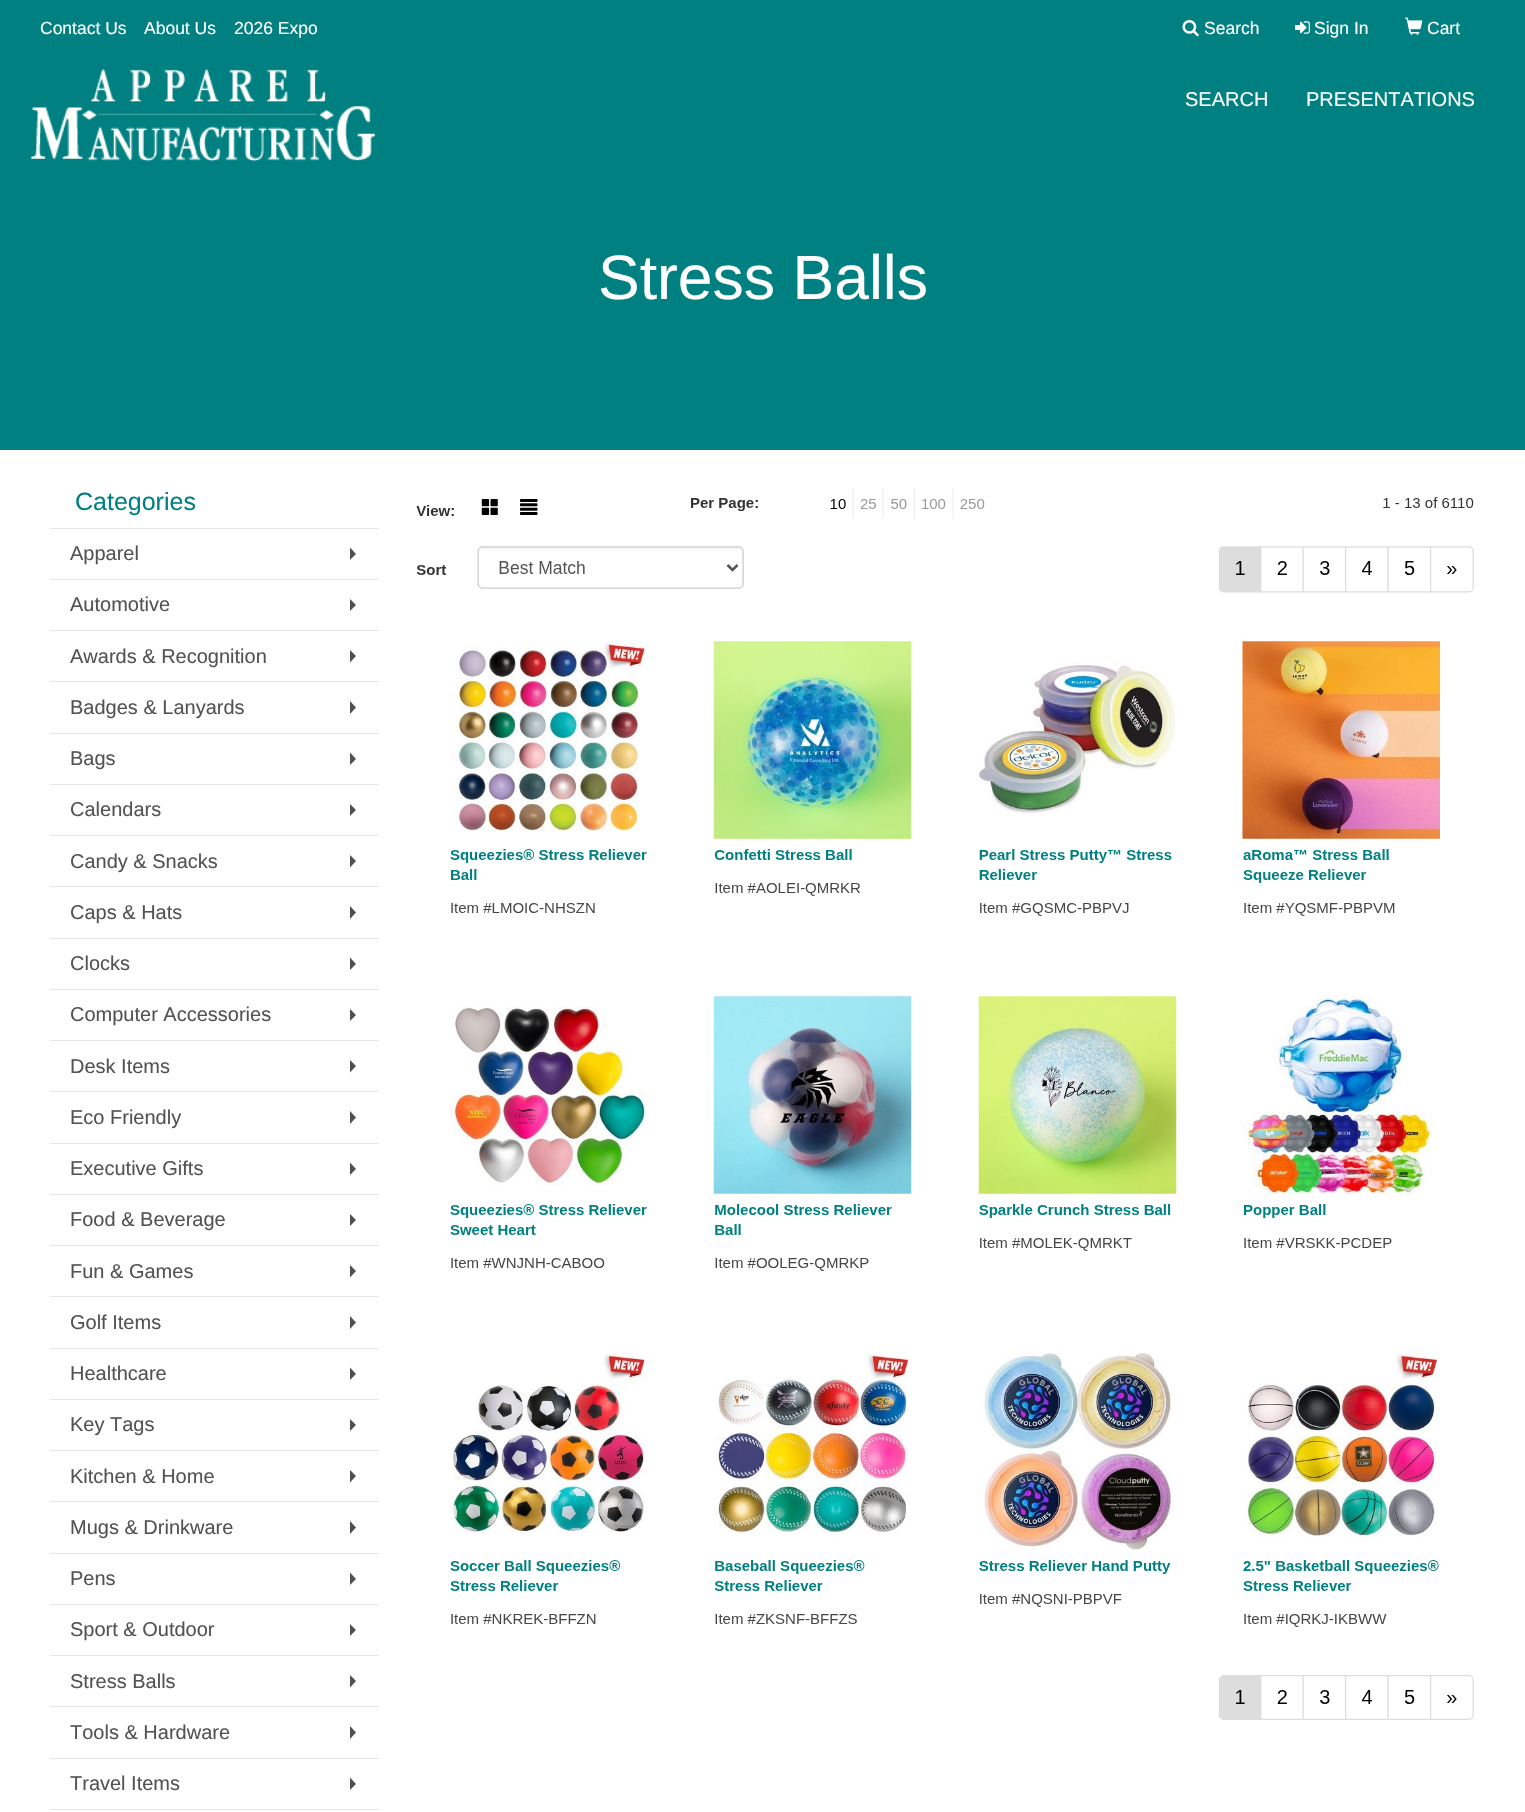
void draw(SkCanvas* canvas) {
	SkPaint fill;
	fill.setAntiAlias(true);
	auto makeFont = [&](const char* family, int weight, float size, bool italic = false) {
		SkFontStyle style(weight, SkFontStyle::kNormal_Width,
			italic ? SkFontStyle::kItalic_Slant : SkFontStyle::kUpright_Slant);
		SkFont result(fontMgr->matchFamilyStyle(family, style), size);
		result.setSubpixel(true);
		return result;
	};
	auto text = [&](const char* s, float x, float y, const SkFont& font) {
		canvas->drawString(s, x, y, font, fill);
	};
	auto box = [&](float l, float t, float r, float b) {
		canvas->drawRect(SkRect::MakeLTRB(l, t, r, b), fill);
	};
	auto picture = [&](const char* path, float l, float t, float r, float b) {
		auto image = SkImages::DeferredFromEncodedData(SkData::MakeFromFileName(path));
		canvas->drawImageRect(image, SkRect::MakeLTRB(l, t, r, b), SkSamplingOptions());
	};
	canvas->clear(0xFF008080);
	picture("image0.png", 1182, 20, 1199, 37);
	picture("image1.png", 1295, 21, 1310, 34);
	picture("image2.png", 1405, 17, 1423, 35);
	picture("image3.png", 31, 68, 375, 162);
	fill.setColor(0xFFFFFFFF);
	box(0, 450, 1525, 1812);
	fill.setColor(0xFFE5E5E5);
	box(50, 528, 379, 529);
	fill.setColor(0xFF515050);
	canvas->drawPath(SkPathBuilder().moveTo(350, 560).lineTo(350, 547.5f).lineTo(356, 554).close().detach(), fill);
	fill.setColor(0xFFE5E5E5);
	box(50, 579, 379, 580);
	fill.setColor(0xFF515050);
	canvas->drawPath(SkPathBuilder().moveTo(350, 611).lineTo(350, 599).lineTo(356, 605).close().detach(), fill);
	fill.setColor(0xFFE5E5E5);
	box(50, 630, 379, 631);
	fill.setColor(0xFF515050);
	canvas->drawPath(SkPathBuilder().moveTo(350, 662.5f).lineTo(350, 650).lineTo(356, 656).close().detach(), fill);
	fill.setColor(0xFFE5E5E5);
	box(50, 681, 379, 682);
	fill.setColor(0xFF515050);
	canvas->drawPath(SkPathBuilder().moveTo(350, 714).lineTo(350, 701).lineTo(356, 707.5f).close().detach(), fill);
	fill.setColor(0xFFE5E5E5);
	box(50, 733, 379, 734);
	fill.setColor(0xFF515050);
	canvas->drawPath(SkPathBuilder().moveTo(350, 765).lineTo(350, 752.5f).lineTo(356, 759).close().detach(), fill);
	fill.setColor(0xFFE5E5E5);
	box(50, 784, 379, 785);
	fill.setColor(0xFF515050);
	canvas->drawPath(SkPathBuilder().moveTo(350, 816).lineTo(350, 804).lineTo(356, 810).close().detach(), fill);
	fill.setColor(0xFFE5E5E5);
	box(50, 835, 379, 836);
	fill.setColor(0xFF515050);
	canvas->drawPath(SkPathBuilder().moveTo(350, 867.5f).lineTo(350, 855).lineTo(356, 861).close().detach(), fill);
	fill.setColor(0xFFE5E5E5);
	box(50, 886, 379, 887);
	fill.setColor(0xFF515050);
	canvas->drawPath(SkPathBuilder().moveTo(350, 919).lineTo(350, 906).lineTo(356, 912.5f).close().detach(), fill);
	fill.setColor(0xFFE5E5E5);
	box(50, 938, 379, 939);
	fill.setColor(0xFF515050);
	canvas->drawPath(SkPathBuilder().moveTo(350, 970).lineTo(350, 957.5f).lineTo(356, 964).close().detach(), fill);
	fill.setColor(0xFFE5E5E5);
	box(50, 989, 379, 990);
	fill.setColor(0xFF515050);
	canvas->drawPath(SkPathBuilder().moveTo(350, 1021).lineTo(350, 1009).lineTo(356, 1015).close().detach(), fill);
	fill.setColor(0xFFE5E5E5);
	box(50, 1040, 379, 1041);
	fill.setColor(0xFF515050);
	canvas->drawPath(SkPathBuilder().moveTo(350, 1072.5f).lineTo(350, 1060).lineTo(356, 1066).close().detach(), fill);
	fill.setColor(0xFFE5E5E5);
	box(50, 1091, 379, 1092);
	fill.setColor(0xFF515050);
	canvas->drawPath(SkPathBuilder().moveTo(350, 1124).lineTo(350, 1111).lineTo(356, 1117.5f).close().detach(), fill);
	fill.setColor(0xFFE5E5E5);
	box(50, 1143, 379, 1144);
	fill.setColor(0xFF515050);
	canvas->drawPath(SkPathBuilder().moveTo(350, 1175).lineTo(350, 1162.5f).lineTo(356, 1169).close().detach(), fill);
	fill.setColor(0xFFE5E5E5);
	box(50, 1194, 379, 1195);
	fill.setColor(0xFF515050);
	canvas->drawPath(SkPathBuilder().moveTo(350, 1226).lineTo(350, 1214).lineTo(356, 1220).close().detach(), fill);
	fill.setColor(0xFFE5E5E5);
	box(50, 1245, 379, 1246);
	fill.setColor(0xFF515050);
	canvas->drawPath(SkPathBuilder().moveTo(350, 1277.5f).lineTo(350, 1265).lineTo(356, 1271).close().detach(), fill);
	fill.setColor(0xFFE5E5E5);
	box(50, 1296, 379, 1297);
	fill.setColor(0xFF515050);
	canvas->drawPath(SkPathBuilder().moveTo(350, 1329).lineTo(350, 1316).lineTo(356, 1322.5f).close().detach(), fill);
	fill.setColor(0xFFE5E5E5);
	box(50, 1348, 379, 1349);
	fill.setColor(0xFF515050);
	canvas->drawPath(SkPathBuilder().moveTo(350, 1380).lineTo(350, 1367.5f).lineTo(356, 1374).close().detach(), fill);
	fill.setColor(0xFFE5E5E5);
	box(50, 1399, 379, 1400);
	fill.setColor(0xFF515050);
	canvas->drawPath(SkPathBuilder().moveTo(350, 1431).lineTo(350, 1419).lineTo(356, 1425).close().detach(), fill);
	fill.setColor(0xFFE5E5E5);
	box(50, 1450, 379, 1451);
	fill.setColor(0xFF515050);
	canvas->drawPath(SkPathBuilder().moveTo(350, 1482.5f).lineTo(350, 1470).lineTo(356, 1476).close().detach(), fill);
	fill.setColor(0xFFE5E5E5);
	box(50, 1501, 379, 1502);
	fill.setColor(0xFF515050);
	canvas->drawPath(SkPathBuilder().moveTo(350, 1534).lineTo(350, 1521).lineTo(356, 1527.5f).close().detach(), fill);
	fill.setColor(0xFFE5E5E5);
	box(50, 1553, 379, 1554);
	fill.setColor(0xFF515050);
	canvas->drawPath(SkPathBuilder().moveTo(350, 1585).lineTo(350, 1572.5f).lineTo(356, 1579).close().detach(), fill);
	fill.setColor(0xFFE5E5E5);
	box(50, 1604, 379, 1605);
	fill.setColor(0xFF515050);
	canvas->drawPath(SkPathBuilder().moveTo(350, 1636).lineTo(350, 1624).lineTo(356, 1630).close().detach(), fill);
	fill.setColor(0xFFE5E5E5);
	box(50, 1655, 379, 1656);
	fill.setColor(0xFF515050);
	canvas->drawPath(SkPathBuilder().moveTo(350, 1687.5f).lineTo(350, 1675).lineTo(356, 1681).close().detach(), fill);
	fill.setColor(0xFFE5E5E5);
	box(50, 1706, 379, 1707);
	fill.setColor(0xFF515050);
	canvas->drawPath(SkPathBuilder().moveTo(350, 1739).lineTo(350, 1726).lineTo(356, 1732.5f).close().detach(), fill);
	fill.setColor(0xFFE5E5E5);
	box(50, 1758, 379, 1759);
	fill.setColor(0xFF515050);
	canvas->drawPath(SkPathBuilder().moveTo(350, 1790).lineTo(350, 1777.5f).lineTo(356, 1784).close().detach(), fill);
	fill.setColor(0xFFE5E5E5);
	box(50, 1809, 379, 1810);
	picture("image4.png", 416, 488, 1474, 1720);
	auto font1 = makeFont("Liberation Sans", 400, 17.5f);
	fill.setColor(0xFFFFFFFF);
	text("Contact Us", 40, 34, font1);
	text("About Us", 144, 34, font1);
	text("2026 Expo", 234, 34, font1);
	text("Search", 1204, 34, font1);
	text("Sign In", 1314, 34, font1);
	text("Cart", 1427, 34, font1);
	auto font2 = makeFont("Liberation Sans", 400, 20);
	text("SEARCH", 1185, 106, font2);
	text("PRESENTATIONS", 1306, 106, font2);
	auto font3 = makeFont("Liberation Sans", 400, 62.5f);
	text("Stress Balls", 598, 299, font3);
	auto font4 = makeFont("Liberation Sans", 400, 25);
	fill.setColor(0xFF008080);
	text("Categories", 75, 510, font4);
	fill.setColor(0xFF535353);
	text("Apparel", 70, 560, font2);
	text("Automotive", 70, 611, font2);
	text("Awards & Recognition", 70, 663, font2);
	text("Badges & Lanyards", 70, 714, font2);
	text("Bags", 70, 765, font2);
	text("Calendars", 70, 816, font2);
	text("Candy & Snacks", 70, 868, font2);
	text("Caps & Hats", 70, 919, font2);
	text("Clocks", 70, 970, font2);
	text("Computer Accessories", 70, 1021, font2);
	text("Desk Items", 70, 1073, font2);
	text("Eco Friendly", 70, 1124, font2);
	text("Executive Gifts", 70, 1175, font2);
	text("Food & Beverage", 70, 1226, font2);
	text("Fun & Games", 70, 1278, font2);
	text("Golf Items", 70, 1329, font2);
	text("Healthcare", 70, 1380, font2);
	text("Key Tags", 70, 1431, font2);
	text("Kitchen & Home", 70, 1483, font2);
	text("Mugs & Drinkware", 70, 1534, font2);
	text("Pens", 70, 1585, font2);
	text("Sport & Outdoor", 70, 1636, font2);
	text("Stress Balls", 70, 1688, font2);
	text("Tools & Hardware", 70, 1739, font2);
	text("Travel Items", 70, 1790, font2);
}
